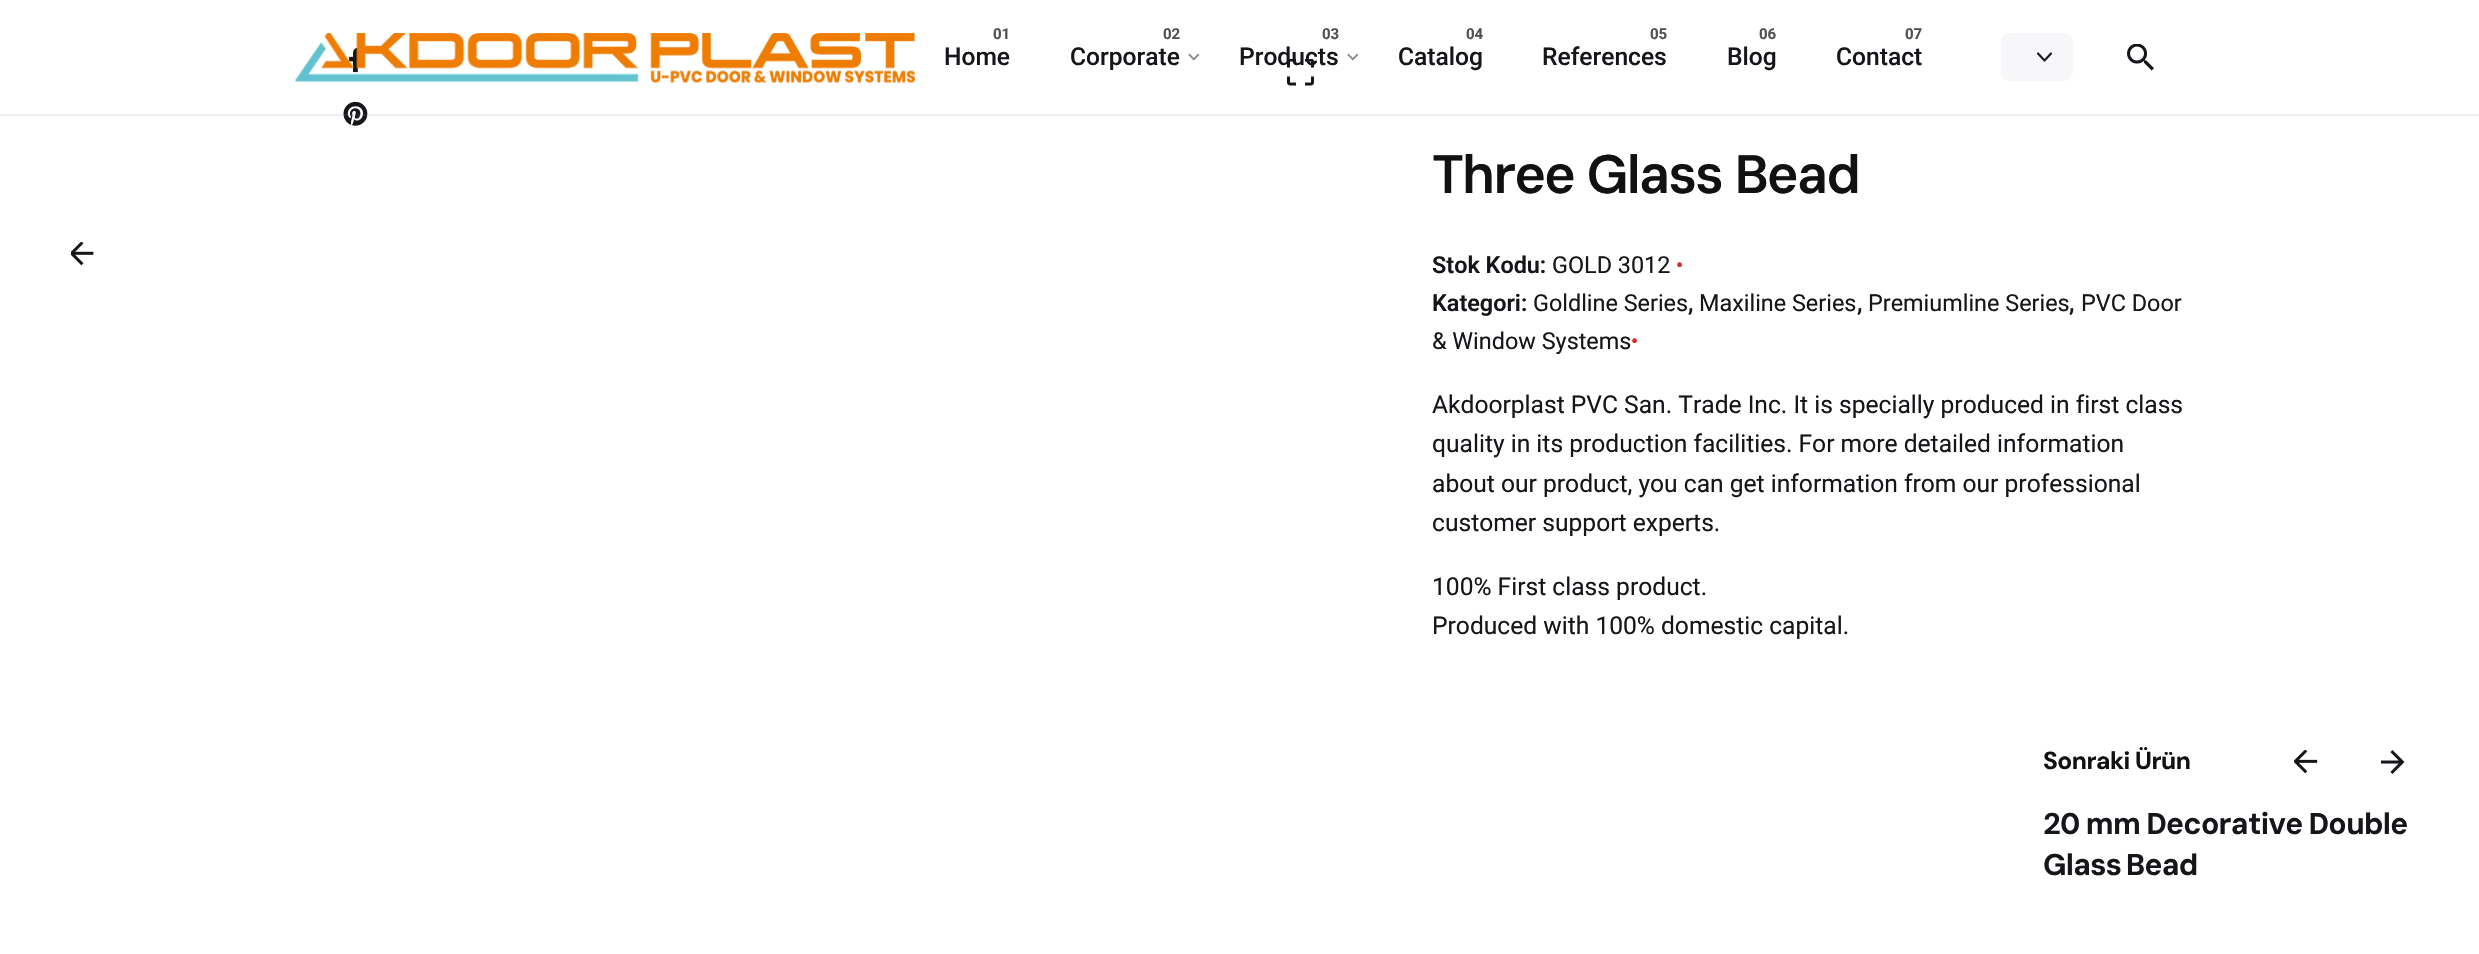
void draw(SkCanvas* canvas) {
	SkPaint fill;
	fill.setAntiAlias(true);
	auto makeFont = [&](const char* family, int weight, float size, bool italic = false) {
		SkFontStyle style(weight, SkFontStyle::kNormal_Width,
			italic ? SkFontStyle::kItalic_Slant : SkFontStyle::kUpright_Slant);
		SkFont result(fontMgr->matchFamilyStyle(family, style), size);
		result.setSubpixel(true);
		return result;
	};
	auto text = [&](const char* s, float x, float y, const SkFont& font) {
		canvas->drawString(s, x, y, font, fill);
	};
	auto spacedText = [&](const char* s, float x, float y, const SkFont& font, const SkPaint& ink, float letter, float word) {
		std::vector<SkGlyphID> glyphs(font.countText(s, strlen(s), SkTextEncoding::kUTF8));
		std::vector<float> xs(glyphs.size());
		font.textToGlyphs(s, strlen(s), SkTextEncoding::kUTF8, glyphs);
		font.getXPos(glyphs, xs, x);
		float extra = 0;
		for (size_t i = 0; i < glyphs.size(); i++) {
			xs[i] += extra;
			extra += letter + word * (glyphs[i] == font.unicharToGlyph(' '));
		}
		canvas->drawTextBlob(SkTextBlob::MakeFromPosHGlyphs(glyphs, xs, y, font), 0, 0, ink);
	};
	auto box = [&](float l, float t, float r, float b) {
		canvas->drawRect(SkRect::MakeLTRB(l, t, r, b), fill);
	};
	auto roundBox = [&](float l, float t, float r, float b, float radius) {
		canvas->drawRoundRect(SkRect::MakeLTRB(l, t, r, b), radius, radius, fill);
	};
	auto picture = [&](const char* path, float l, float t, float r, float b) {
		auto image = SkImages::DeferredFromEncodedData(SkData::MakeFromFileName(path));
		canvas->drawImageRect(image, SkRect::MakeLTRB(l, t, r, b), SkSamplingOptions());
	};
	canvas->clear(0xFFFFFFFF);
	picture("image6.png", 343, 101, 368, 126);
	fill.setColor(0x269690A2);
	box(0, 114, 2479, 116);
	picture("image5.png", 349, 47, 358, 73);
	picture("image0.png", 295, 33, 915, 83);
	picture("image1.png", 1188, 53, 1200, 61);
	picture("image2.png", 1347, 53, 1359, 61);
	fill.setColor(0xFFF7F6F8);
	roundBox(2001, 33, 2073, 81, 9);
	fill.setStyle(SkPaint::kStroke_Style);
	fill.setStrokeWidth(2.2f);
	fill.setStrokeCap(SkPaint::kRound_Cap);
	fill.setStrokeJoin(SkPaint::kRound_Join);
	fill.setColor(0xFF1B1B28);
	canvas->drawPath(SkPathBuilder().moveTo(2038, 53.5f).lineTo(2044.5f, 60.5f).lineTo(2051, 53.5f).detach(), fill);
	picture("image3.png", 2127, 44, 2154, 71);
	picture("image4.png", 71, 242, 94, 266);
	picture("image7.png", 1287, 59, 1314, 86);
	picture("image8.png", 2294, 750, 2318, 774);
	picture("image9.png", 2381, 750, 2405, 774);
	auto font1 = makeFont("Roboto", 700, 15);
	fill.setStyle(SkPaint::kFill_Style);
	fill.setColor(0xFF505053);
	text("01", 993, 39, font1);
	auto font2 = makeFont("Roboto", 500, 24.6f);
	fill.setColor(0xFF161519);
	text("Home", 944, 65, font2);
	fill.setColor(0xFF505053);
	text("02", 1163, 39, font1);
	fill.setColor(0xFF161519);
	text("Corporate", 1070, 65, font2);
	fill.setColor(0xFF505053);
	text("03", 1322, 39, font1);
	fill.setColor(0xFF161519);
	text("Products", 1239, 65, font2);
	fill.setColor(0xFF505053);
	text("04", 1466, 39, font1);
	fill.setColor(0xFF161519);
	text("Catalog", 1398, 65, font2);
	fill.setColor(0xFF505053);
	text("05", 1650, 39, font1);
	fill.setColor(0xFF161519);
	text("References", 1542, 65, font2);
	fill.setColor(0xFF505053);
	text("06", 1759, 39, font1);
	fill.setColor(0xFF161519);
	text("Blog", 1727, 65, font2);
	fill.setColor(0xFF505053);
	text("07", 1905, 39, font1);
	fill.setColor(0xFF161519);
	text("Contact", 1836, 65, font2);
	auto font3 = makeFont("DM Sans", 600, 54);
	fill.setColor(0xFF111013);
	spacedText("Three Glass Bead", 1432, 193, font3, fill, -1.9f, 1);
	auto font4 = makeFont("Roboto", 600, 23.4f);
	fill.setColor(0xFF161519);
	text("Stok Kodu:", 1432, 273, font4);
	auto font5 = makeFont("Roboto", 400, 23.4f);
	text("GOLD 3012", 1552, 273, font5);
	auto font6 = makeFont("Roboto", 600, 20);
	fill.setColor(0xFFDC2828);
	text("•", 1676, 272, font6);
	fill.setColor(0xFF161519);
	text("Kategori:", 1432, 311, font4);
	text("Goldline Series", 1533, 311, font5);
	text(",", 1688, 311, font4);
	text("Maxiline Series", 1699, 311, font5);
	text(",", 1857, 311, font4);
	text("Premiumline Series", 1868, 311, font5);
	text(",", 2069, 311, font4);
	text("PVC Door", 2081, 311, font5);
	text("& Window Systems", 1432, 349, font5);
	fill.setColor(0xFFDC2828);
	text("•", 1631, 348, font6);
	auto font7 = makeFont("Roboto", 400, 24.6f);
	fill.setColor(0xFF161519);
	text("Akdoorplast PVC San. Trade Inc. It is specially produced in first class", 1432, 413, font7);
	text("quality in its production facilities. For more detailed information", 1432, 452, font7);
	text("about our product, you can get information from our professional", 1432, 492, font7);
	text("customer support experts.", 1432, 531, font7);
	text("100% First class product.", 1432, 595, font7);
	text("Produced with 100% domestic capital.", 1432, 634, font7);
	auto font8 = makeFont("DM Sans", 700, 24.6f);
	fill.setColor(0xFF111013);
	spacedText("Sonraki Ürün", 2043, 769, font8, fill, -0.5f, 0);
	auto font9 = makeFont("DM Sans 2", 700, 30);
	fill.setColor(0xFF161519);
	spacedText("20 mm Decorative Double", 2043, 834, font9, fill, -0.75f, -0.5f);
	spacedText("Glass Bead", 2043, 875, font9, fill, -0.75f, -2);
}
